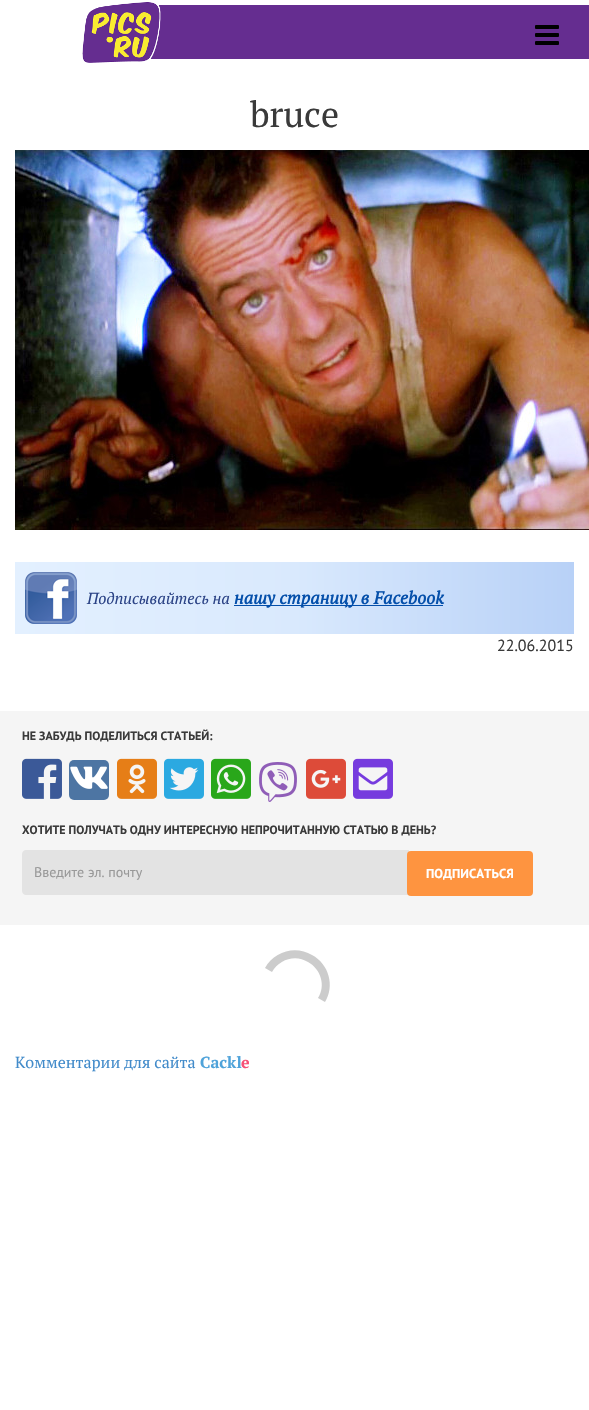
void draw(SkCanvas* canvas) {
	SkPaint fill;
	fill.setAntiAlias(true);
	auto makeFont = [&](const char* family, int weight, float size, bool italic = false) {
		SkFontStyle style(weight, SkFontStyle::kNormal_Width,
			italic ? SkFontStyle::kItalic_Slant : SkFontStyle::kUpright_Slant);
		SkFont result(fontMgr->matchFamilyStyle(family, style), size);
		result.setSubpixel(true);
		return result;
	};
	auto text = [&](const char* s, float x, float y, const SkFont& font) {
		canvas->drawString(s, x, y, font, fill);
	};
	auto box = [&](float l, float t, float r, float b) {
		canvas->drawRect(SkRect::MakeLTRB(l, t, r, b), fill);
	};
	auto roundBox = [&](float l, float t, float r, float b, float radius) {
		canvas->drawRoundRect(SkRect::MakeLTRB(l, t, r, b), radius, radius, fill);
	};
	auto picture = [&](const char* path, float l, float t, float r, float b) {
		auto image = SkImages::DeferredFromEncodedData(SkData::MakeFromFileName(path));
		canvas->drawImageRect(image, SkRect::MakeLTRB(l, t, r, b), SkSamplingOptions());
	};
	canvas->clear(0xFFFFFFFF);
	picture("image0.png", 82, 2, 589, 63);
	picture("image1.png", 535, 25, 559, 45);
	picture("image2.png", 15, 150, 589, 530);
	{
		const SkColor colors[] = {0xFFE3F0FF, 0xFFD9E9FD, 0xFFB8D1F7};
		const float stops[] = {0, 0.5f, 1};
		const SkPoint ends[] = {{15, 598}, {574, 598}};
		fill.setShader(SkGradientShader::MakeLinear(ends, colors, stops, 3, SkTileMode::kClamp));
		fill.setAlpha(255);
	}
	box(15, 562, 574, 634);
	picture("image3.png", 25, 572, 77, 624);
	fill.setShader(nullptr);
	fill.setColor(0xFF044FAA);
	box(234, 605, 443, 606);
	fill.setColor(0xFFF5F5F5);
	box(0, 711, 589, 925);
	picture("image4.png", 22, 758, 62, 799);
	fill.setColor(0xFF4D75A3);
	roundBox(69, 760, 109, 800, 5);
	picture("image5.png", 70, 766, 108, 789);
	picture("image6.png", 117, 758, 157, 799);
	picture("image7.png", 164, 758, 204, 799);
	picture("image8.png", 211, 758, 251, 799);
	picture("image9.png", 259, 762, 297, 802);
	picture("image10.png", 306, 758, 346, 799);
	picture("image11.png", 353, 758, 393, 799);
	fill.setColor(0xFFE3E3E3);
	canvas->drawPath(SkPathBuilder().moveTo(26, 850).lineTo(409, 850).lineTo(409, 895).lineTo(26, 895).cubicTo(24, 895, 22, 893, 22, 891).lineTo(22, 854).cubicTo(22, 852, 24, 850, 26, 850).close().detach(), fill);
	fill.setColor(0xFFFE9440);
	roundBox(407, 851, 533, 896, 4);
	fill.setColor(0xFFCCCCCC);
	canvas->drawPath(SkPathBuilder().moveTo(325, 1002).cubicTo(335, 986, 329, 964, 312, 955).cubicTo(296, 945, 274, 951, 265, 968).lineTo(272, 972).cubicTo(279, 959, 296, 954, 308, 962).cubicTo(321, 969, 326, 986, 318, 998).close().detach(), fill);
	auto font1 = makeFont("PT Serif", 400, 36);
	fill.setColor(0xFF3A3A3A);
	text("bruce", 250, 127, font1);
	auto font2 = makeFont("PT Serif", 400, 16, true);
	fill.setColor(0xFF2B4386);
	text("Подписывайтесь на", 87, 604, font2);
	auto font3 = makeFont("PT Serif", 700, 17.6f, true);
	fill.setColor(0xFF044FAA);
	text("нашу страницу в Facebook", 234, 604, font3);
	auto font4 = makeFont("PT Sans", 400, 16);
	fill.setColor(0xFF3A3A3A);
	text("22.06.2015", 497, 651, font4);
	auto font5 = makeFont("PT Sans", 700, 12);
	text("НЕ ЗАБУДЬ ПОДЕЛИТЬСЯ СТАТЬЕЙ:", 22, 740, font5);
	text("ХОТИТЕ ПОЛУЧАТЬ ОДНУ ИНТЕРЕСНУЮ НЕПРОЧИТАННУЮ СТАТЬЮ В ДЕНЬ?", 22, 834, font5);
	auto font6 = makeFont("PT Sans", 400, 14);
	fill.setColor(0xFF999999);
	text("Введите эл. почту", 34, 877, font6);
	auto font7 = makeFont("PT Sans", 700, 13);
	fill.setColor(0xFFFFFFFF);
	text("ПОДПИСАТЬСЯ", 426, 878, font7);
	auto font8 = makeFont("PT Serif", 400, 16);
	fill.setColor(0xFF428BCA);
	text("Комментарии для сайта", 15, 1068, font8);
	auto font9 = makeFont("PT Serif", 700, 16);
	fill.setColor(0xFF4FA3DA);
	text("Cackl", 200, 1068, font9);
	fill.setColor(0xFFF65077);
	text("e", 241, 1068, font9);
}
